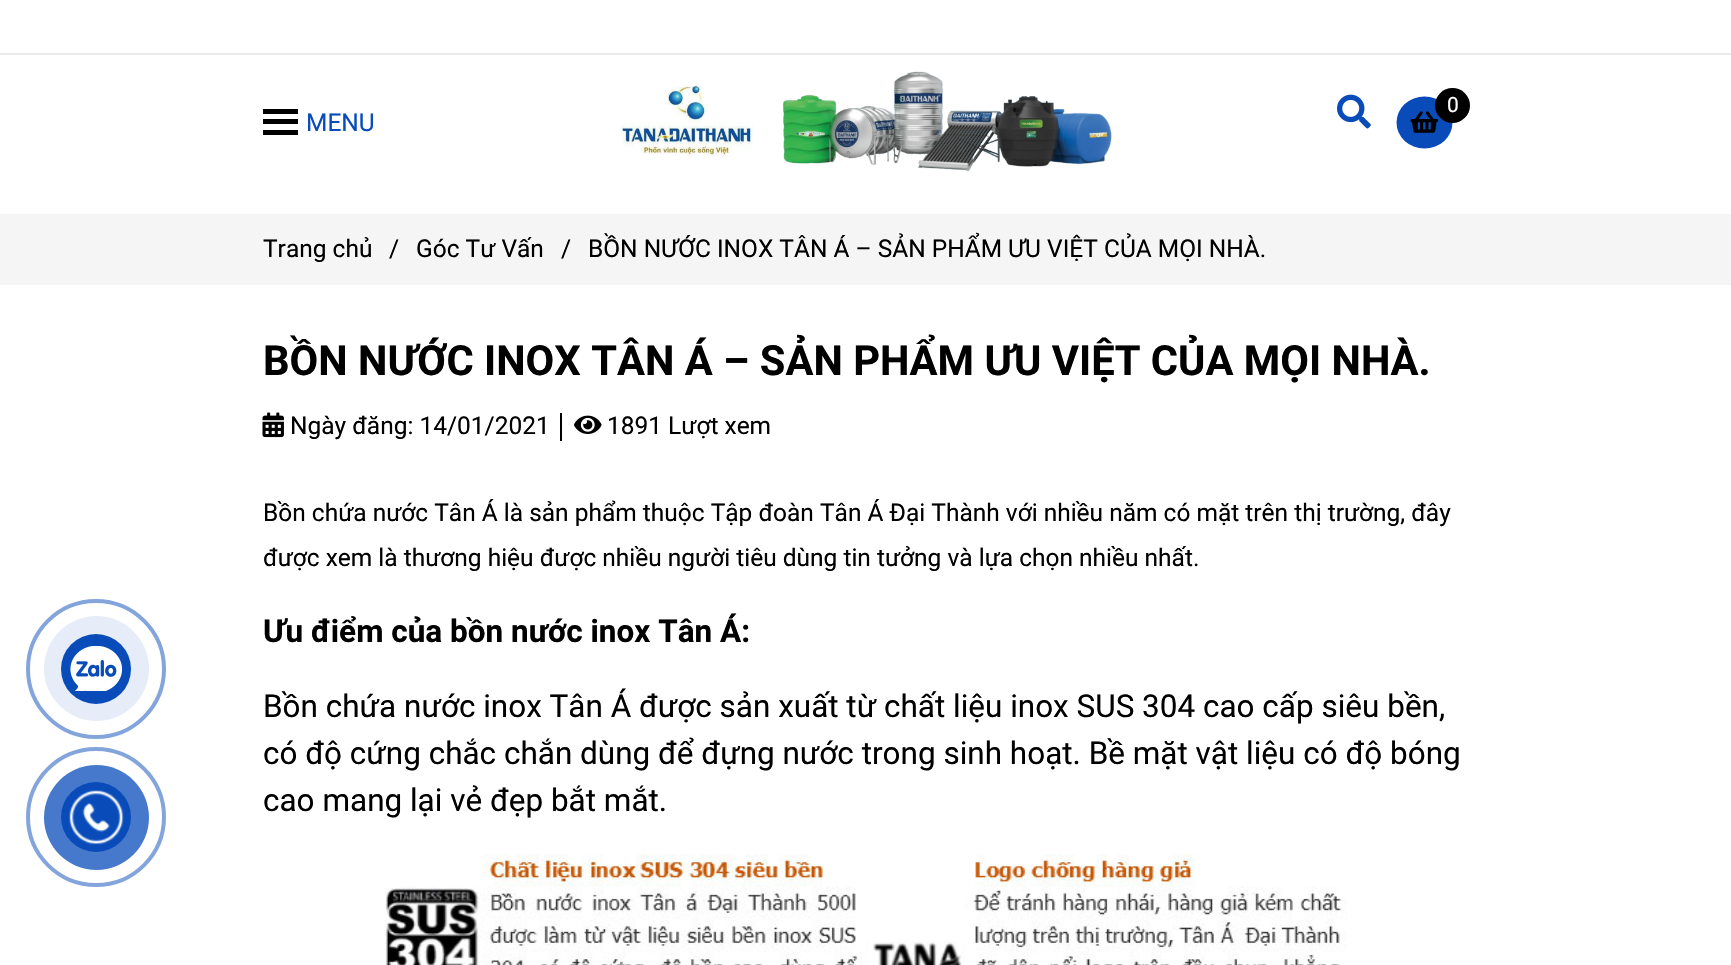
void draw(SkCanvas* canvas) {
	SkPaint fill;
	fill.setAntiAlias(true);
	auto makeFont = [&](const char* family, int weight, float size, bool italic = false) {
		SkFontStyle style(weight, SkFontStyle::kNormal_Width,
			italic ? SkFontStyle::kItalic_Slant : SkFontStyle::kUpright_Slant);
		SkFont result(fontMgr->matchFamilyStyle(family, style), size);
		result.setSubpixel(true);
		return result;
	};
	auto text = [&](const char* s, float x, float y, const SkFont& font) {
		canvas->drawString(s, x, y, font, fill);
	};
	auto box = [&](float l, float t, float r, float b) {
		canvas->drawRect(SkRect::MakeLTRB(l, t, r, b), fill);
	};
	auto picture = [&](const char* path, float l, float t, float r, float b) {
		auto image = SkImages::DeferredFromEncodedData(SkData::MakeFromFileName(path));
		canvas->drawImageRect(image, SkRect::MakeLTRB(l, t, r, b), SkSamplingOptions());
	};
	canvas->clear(0xFFFFFFFF);
	fill.setColor(0xFFEBEBEB);
	box(0, 53, 1731, 55);
	picture("image0.png", 621, 71, 1112, 172);
	picture("image1.png", 1337, 94, 1371, 129);
	fill.setColor(0xFF084BB9);
	canvas->drawOval(SkRect::MakeLTRB(1396.5f, 96.5f, 1452.5f, 148.5f), fill);
	picture("image2.png", 1410, 111, 1439, 133);
	fill.setColor(0xFF000000);
	canvas->drawCircle(1452.5f, 105.5f, 17.5f, fill);
	box(263, 109, 298, 114);
	box(263, 119, 298, 124);
	box(263, 130, 298, 135);
	fill.setColor(0xFFF5F5F5);
	box(0, 214, 1731, 285);
	fill.setStyle(SkPaint::kStroke_Style);
	fill.setStrokeWidth(4);
	fill.setColor(0xFF84A5DC);
	canvas->drawCircle(96, 669, 68, fill);
	fill.setStyle(SkPaint::kFill_Style);
	fill.setColor(0xFFE6EDF8);
	canvas->drawCircle(96.5f, 668.5f, 52.5f, fill);
	fill.setColor(0xFF084BB9);
	canvas->drawCircle(96, 669, 35, fill);
	picture("image3.png", 70, 646, 123, 691);
	fill.setStyle(SkPaint::kStroke_Style);
	fill.setColor(0xFF84A5DC);
	canvas->drawCircle(96, 817, 68, fill);
	fill.setStyle(SkPaint::kFill_Style);
	fill.setColor(0xFF4678CB);
	canvas->drawCircle(96.5f, 817.5f, 52.5f, fill);
	fill.setColor(0xFF084BB9);
	canvas->drawCircle(96, 817, 35, fill);
	picture("image4.png", 69, 790, 124, 845);
	picture("image5.png", 262, 412, 284, 438);
	fill.setColor(0xFF000000);
	box(560, 413, 562, 441);
	picture("image6.png", 574, 415, 602, 434);
	picture("image7.png", 385, 854, 1347, 965);
	auto font1 = makeFont("Roboto", 400, 21);
	fill.setColor(0xFFFFFFFF);
	text("0", 1447, 112, font1);
	auto font2 = makeFont("Roboto", 400, 24.5f);
	fill.setColor(0xFF084BB9);
	text("MENU", 306, 131, font2);
	fill.setColor(0xFF000000);
	text("Trang chủ", 263, 257, font2);
	text("/", 389, 257, font2);
	text("Góc Tư Vấn", 416, 257, font2);
	text("/", 561, 257, font2);
	text("BỒN NƯỚC INOX TÂN Á – SẢN PHẨM ƯU VIỆT CỦA MỌI NHÀ.", 588, 257, font2);
	auto font3 = makeFont("Roboto", 700, 41.65f);
	text("BỒN NƯỚC INOX TÂN Á – SẢN PHẨM ƯU VIỆT CỦA MỌI NHÀ.", 263, 375, font3);
	text("Ngày đăng: 14/01/2021", 290, 434, font2);
	text("1891 Lượt xem", 607, 434, font2);
	text("Bồn chứa nước Tân Á là sản phẩm thuộc Tập đoàn Tân Á Đại Thành với nhiều năm có mặt trên thị trường, đây", 263, 521, font2);
	text("được xem là thương hiệu được nhiều người tiêu dùng tin tưởng và lựa chọn nhiều nhất.", 263, 566, font2);
	auto font4 = makeFont("Roboto", 700, 31.5f);
	text("Ưu điểm của bồn nước inox Tân Á:", 263, 642, font4);
	auto font5 = makeFont("Roboto", 400, 31.5f);
	text("Bồn chứa nước inox Tân Á được sản xuất từ chất liệu inox SUS 304 cao cấp siêu bền,", 263, 717, font5);
	text("có độ cứng chắc chắn dùng để đựng nước trong sinh hoạt. Bề mặt vật liệu có độ bóng", 263, 764, font5);
	text("cao mang lại vẻ đẹp bắt mắt.", 263, 811, font5);
}
